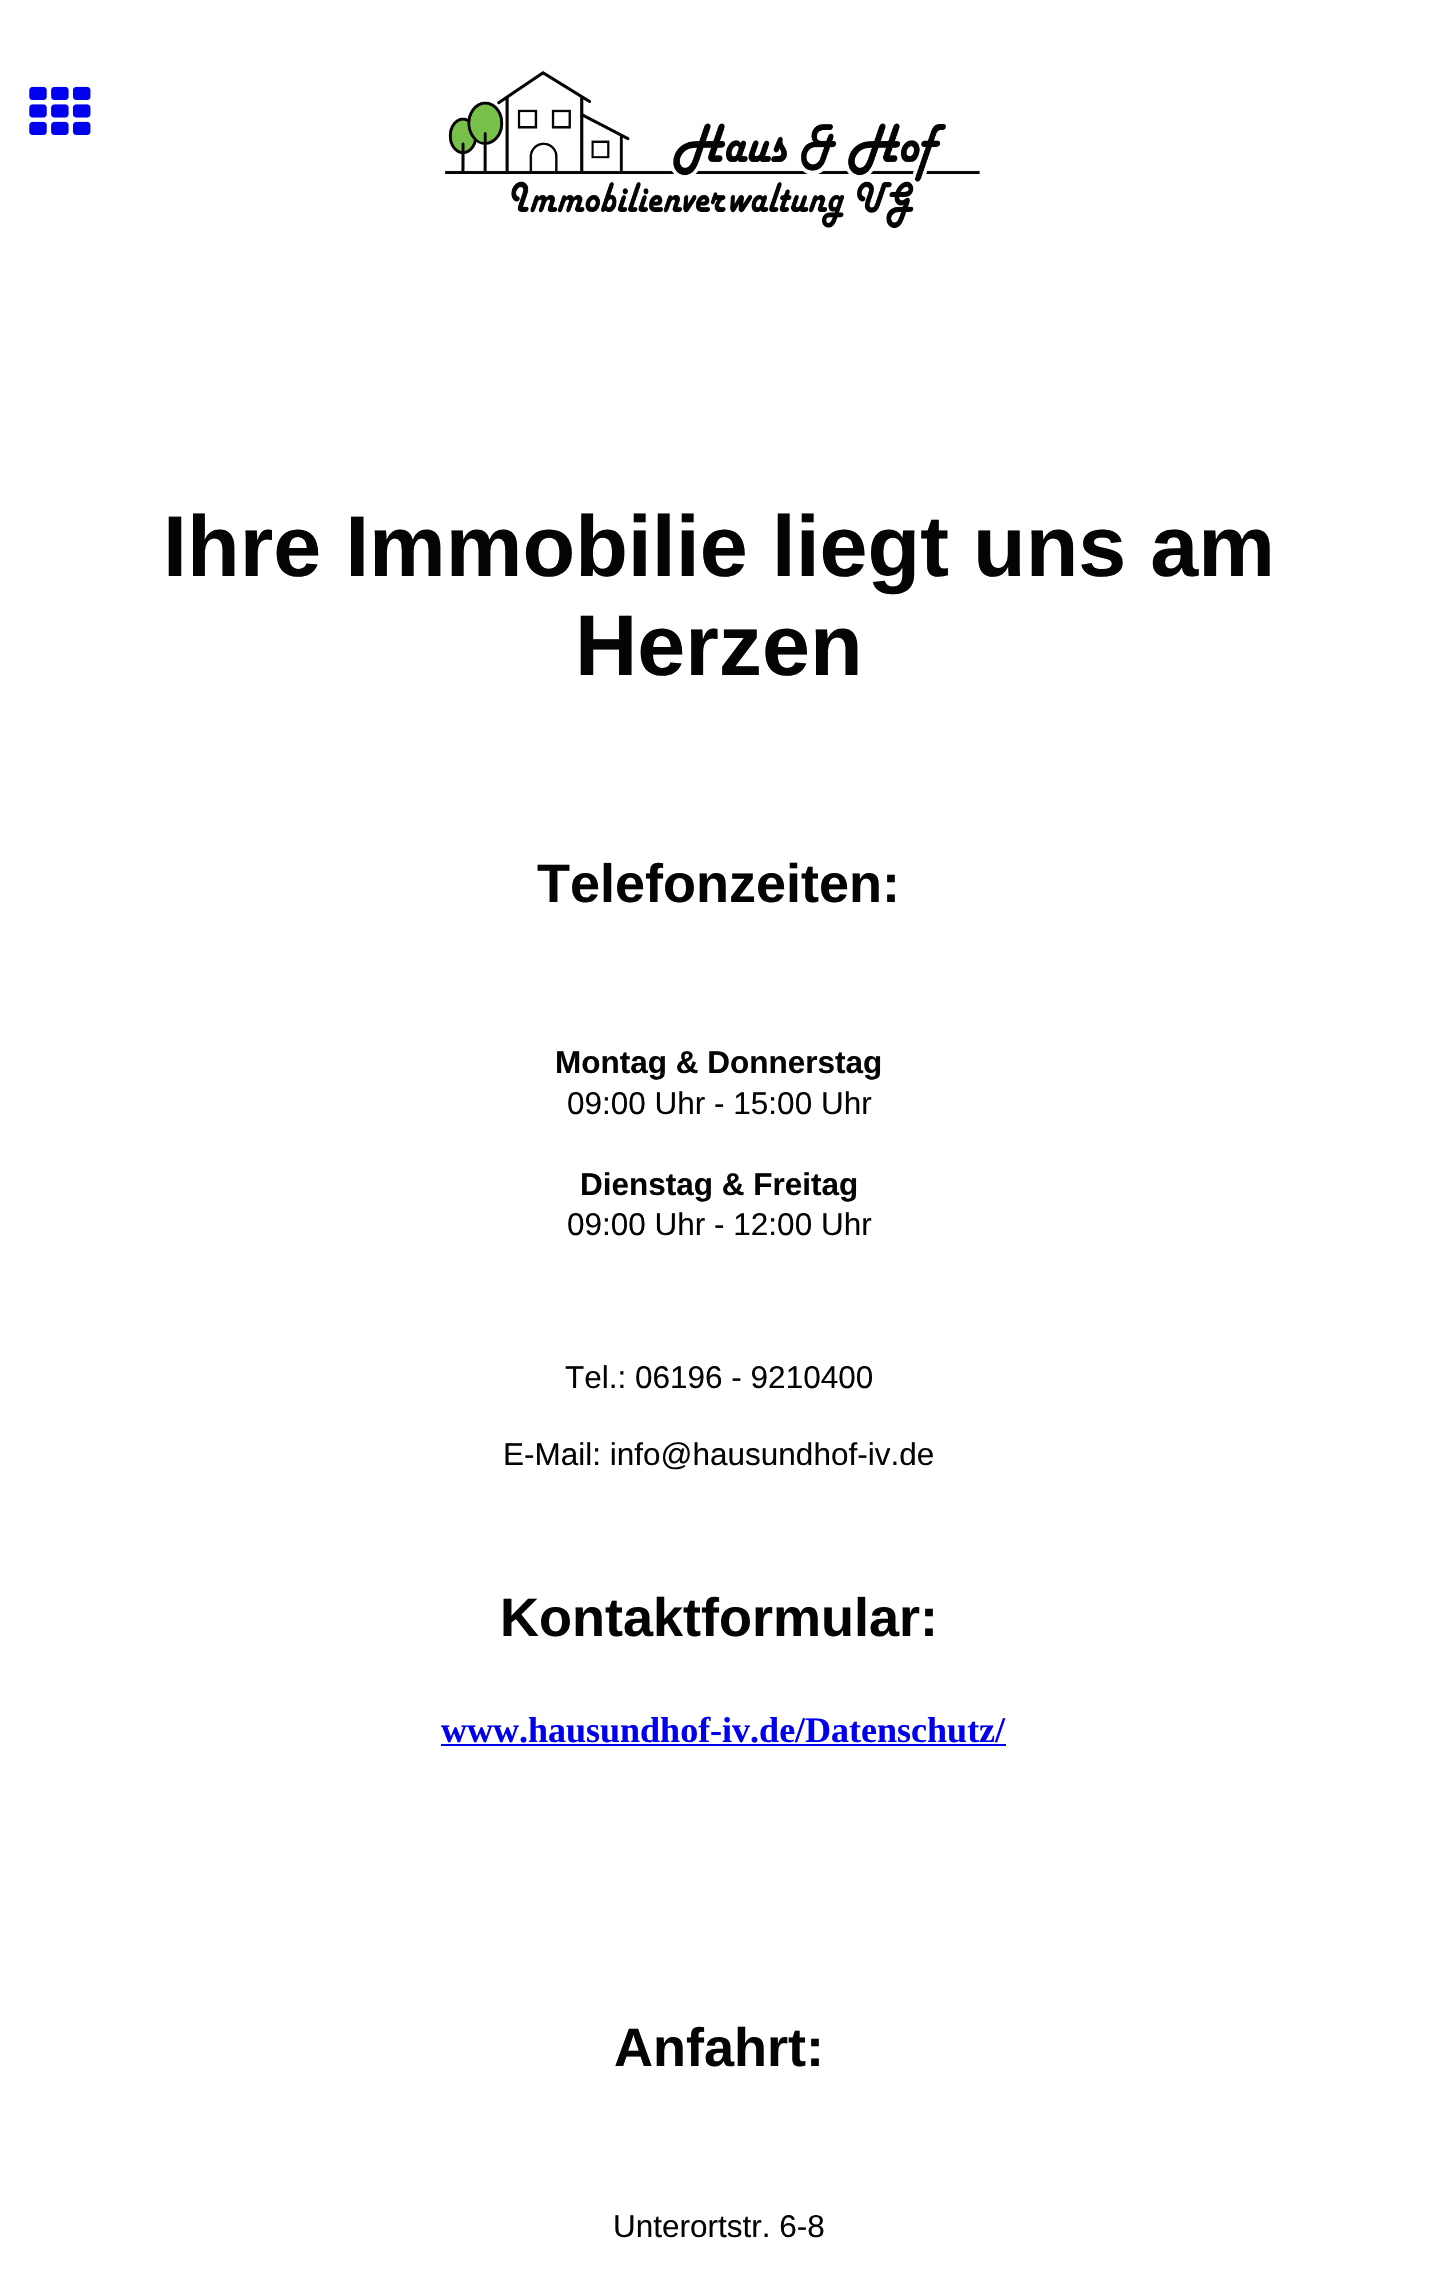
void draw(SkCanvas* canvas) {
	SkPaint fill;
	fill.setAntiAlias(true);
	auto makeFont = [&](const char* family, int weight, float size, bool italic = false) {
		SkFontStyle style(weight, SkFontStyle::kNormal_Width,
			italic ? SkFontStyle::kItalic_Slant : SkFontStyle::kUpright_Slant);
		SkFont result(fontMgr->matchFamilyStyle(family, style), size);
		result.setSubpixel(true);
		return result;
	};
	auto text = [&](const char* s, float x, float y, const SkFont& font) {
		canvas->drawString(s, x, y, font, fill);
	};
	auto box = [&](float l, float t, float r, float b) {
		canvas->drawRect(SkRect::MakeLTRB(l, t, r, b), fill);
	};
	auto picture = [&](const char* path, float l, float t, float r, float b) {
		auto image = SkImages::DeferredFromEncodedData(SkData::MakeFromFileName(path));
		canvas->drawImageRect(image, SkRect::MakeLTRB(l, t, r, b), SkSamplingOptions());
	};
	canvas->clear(0xFFFFFFFF);
	picture("image0.png", 29, 86, 91, 135);
	picture("image1.png", 445, 71, 980, 229);
	fill.setColor(0xFF0000EE);
	box(441, 1744, 1006, 1746);
	auto font1 = makeFont("Liberation Sans", 700, 86.25f);
	fill.setColor(0xFF050404);
	text("Ihre Immobilie liegt uns am", 163, 576, font1);
	text("Herzen", 575, 675, font1);
	auto font2 = makeFont("Liberation Sans", 700, 54);
	text("Telefonzeiten:", 537, 902, font2);
	auto font3 = makeFont("Liberation Sans", 700, 31.5f);
	text("Montag & Donnerstag", 555, 1073, font3);
	auto font4 = makeFont("Liberation Sans", 400, 31.5f);
	text("09:00 Uhr - 15:00 Uhr", 567, 1114, font4);
	text("Dienstag & Freitag", 580, 1195, font3);
	text("09:00 Uhr - 12:00 Uhr", 567, 1235, font4);
	text("Tel.: 06196 - 9210400", 565, 1388, font4);
	text("E-Mail: info@hausundhof-iv.de", 503, 1465, font4);
	text("Kontaktformular:", 500, 1636, font2);
	auto font5 = makeFont("Liberation Serif", 700, 36);
	fill.setColor(0xFF0000EE);
	text("www.hausundhof-iv.de/Datenschutz/", 441, 1742, font5);
	fill.setColor(0xFF050404);
	text("Anfahrt:", 614, 2066, font2);
	text("Unterortstr. 6-8", 613, 2237, font4);
}
